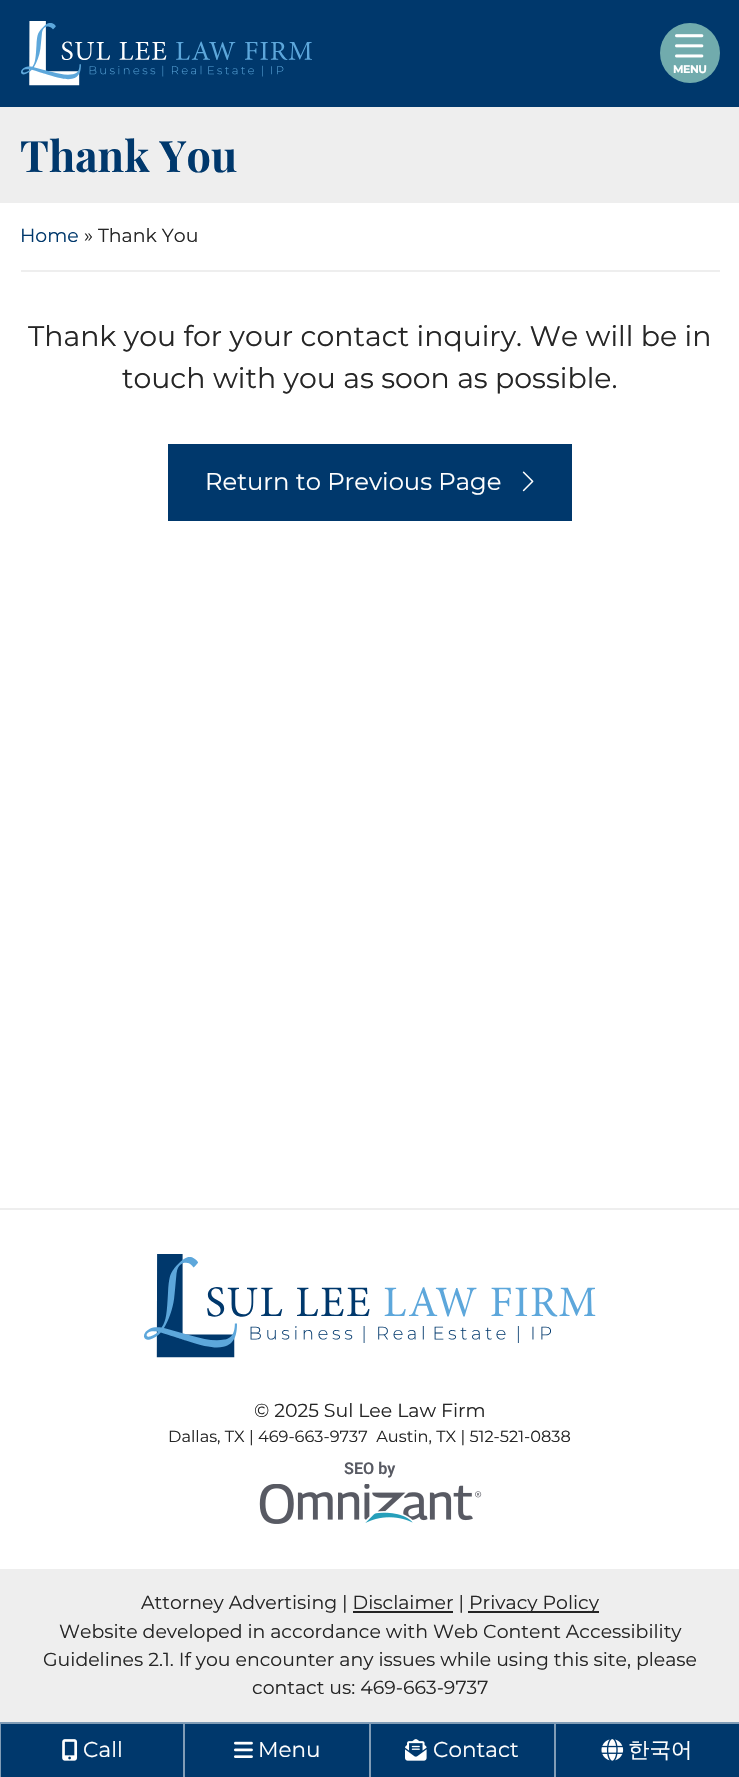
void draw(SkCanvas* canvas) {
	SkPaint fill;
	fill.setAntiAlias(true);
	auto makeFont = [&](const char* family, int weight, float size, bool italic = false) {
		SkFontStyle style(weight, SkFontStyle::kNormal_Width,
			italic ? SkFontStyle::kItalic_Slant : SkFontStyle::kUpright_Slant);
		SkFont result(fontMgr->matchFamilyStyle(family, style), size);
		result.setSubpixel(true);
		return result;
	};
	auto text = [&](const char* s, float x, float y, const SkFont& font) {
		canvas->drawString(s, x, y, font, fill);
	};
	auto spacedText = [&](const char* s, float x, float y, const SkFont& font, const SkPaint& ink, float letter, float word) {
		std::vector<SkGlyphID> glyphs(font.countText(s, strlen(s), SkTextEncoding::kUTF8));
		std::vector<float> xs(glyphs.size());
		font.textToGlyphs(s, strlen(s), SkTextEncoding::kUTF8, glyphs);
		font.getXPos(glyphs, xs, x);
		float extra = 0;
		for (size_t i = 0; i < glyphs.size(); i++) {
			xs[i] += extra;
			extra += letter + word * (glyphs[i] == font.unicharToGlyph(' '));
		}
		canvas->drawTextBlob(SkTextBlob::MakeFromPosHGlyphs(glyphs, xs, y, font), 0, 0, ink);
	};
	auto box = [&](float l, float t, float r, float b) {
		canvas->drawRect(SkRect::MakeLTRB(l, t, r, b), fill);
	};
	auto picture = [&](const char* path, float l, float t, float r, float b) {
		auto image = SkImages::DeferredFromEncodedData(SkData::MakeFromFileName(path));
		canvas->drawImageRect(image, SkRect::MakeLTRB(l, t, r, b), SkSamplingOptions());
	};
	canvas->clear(0xFFFFFFFF);
	fill.setColor(0xFF00386C);
	box(0, 0, 739, 107);
	picture("image0.png", 21, 21, 312, 86);
	fill.setColor(0xFF71ABAD);
	canvas->drawCircle(690, 53, 30, fill);
	picture("image1.png", 675, 34, 704, 58);
	fill.setColor(0xFFEEEEEE);
	box(0, 107, 739, 203);
	box(21, 270, 720, 272);
	fill.setColor(0xFF00386C);
	box(168, 444, 572, 521);
	picture("image2.png", 522, 471, 534, 492);
	fill.setColor(0xFFEEEEEE);
	box(0, 1208, 739, 1210);
	picture("image3.png", 144, 1254, 596, 1358);
	picture("image4.png", 259, 1484, 482, 1524);
	fill.setColor(0xFF00386C);
	box(1, 1724, 183, 1777);
	fill.setColor(0xFF809CB6);
	box(0, 1722, 739, 1724);
	box(0, 1724, 1, 1777);
	picture("image5.png", 62, 1739, 78, 1761);
	fill.setColor(0xFF00386C);
	box(185, 1724, 369, 1777);
	fill.setColor(0xFF809CB6);
	box(183, 1724, 185, 1777);
	picture("image6.png", 234, 1741, 253, 1758);
	fill.setColor(0xFF00386C);
	box(371, 1724, 554, 1777);
	fill.setColor(0xFF809CB6);
	box(369, 1724, 371, 1777);
	picture("image7.png", 405, 1739, 427, 1761);
	fill.setColor(0xFF00386C);
	box(556, 1724, 739, 1777);
	fill.setColor(0xFF809CB6);
	box(554, 1724, 556, 1777);
	picture("image8.png", 601, 1739, 624, 1761);
	fill.setColor(0xFFEEEEEE);
	box(0, 1569, 739, 1722);
	fill.setColor(0xFF242424);
	box(468, 1611, 599, 1613);
	auto font1 = makeFont("Montserrat", 700, 11);
	fill.setColor(0xFFFFFFFF);
	spacedText("MENU", 673, 73, font1, fill, -0.5f, 0);
	auto font2 = makeFont("Playfair Display", 700, 43.25f);
	fill.setColor(0xFF00386C);
	text("Thank You", 20, 172, font2);
	auto font3 = makeFont("Montserrat", 100, 18.9f);
	text("Home", 20, 242, font3);
	fill.setColor(0xFF262626);
	text("» Thank You", 84, 242, font3);
	auto font4 = makeFont("Montserrat", 100, 28.35f);
	text("Thank you for your contact inquiry. We will be in", 28, 346, font4);
	text("touch with you as soon as possible.", 122, 388, font4);
	auto font5 = makeFont("Montserrat", 100, 24.25f);
	fill.setColor(0xFFFFFFFF);
	text("Return to Previous Page", 205, 490, font5);
	fill.setColor(0xFF262626);
	text("© 2025 Sul Lee Law Firm", 254, 1417, font3);
	auto font6 = makeFont("Montserrat", 100, 16.2f);
	text("Dallas, TX | 469-663-9737  Austin, TX | 512-521-0838", 168, 1442, font6);
	auto font7 = makeFont("Roboto", 600, 16.2f);
	fill.setColor(0xFF585A63);
	text("SEO by", 344, 1474, font7);
	auto font8 = makeFont("Montserrat", 100, 21.5f);
	fill.setColor(0xFFFFFFFF);
	text("Call", 83, 1757, font8);
	text("Menu", 258, 1757, font8);
	text("Contact", 433, 1757, font8);
	auto font9 = makeFont("WenQuanYi Zen Hei", 500, 21.5f);
	text("한국어", 628, 1757, font9);
	fill.setColor(0xFF262626);
	text("Attorney Advertising | Disclaimer |", 141, 1609, font3);
	text("Privacy Policy", 469, 1609, font3);
	fill.setColor(0xFF242424);
	box(353, 1611, 453, 1613);
	fill.setColor(0xFF262626);
	text("Website developed in accordance with Web Content Accessibility", 59, 1638, font3);
	text("Guidelines 2.1. If you encounter any issues while using this site, please", 43, 1666, font3);
	text("contact us: 469-663-9737", 252, 1694, font3);
}
